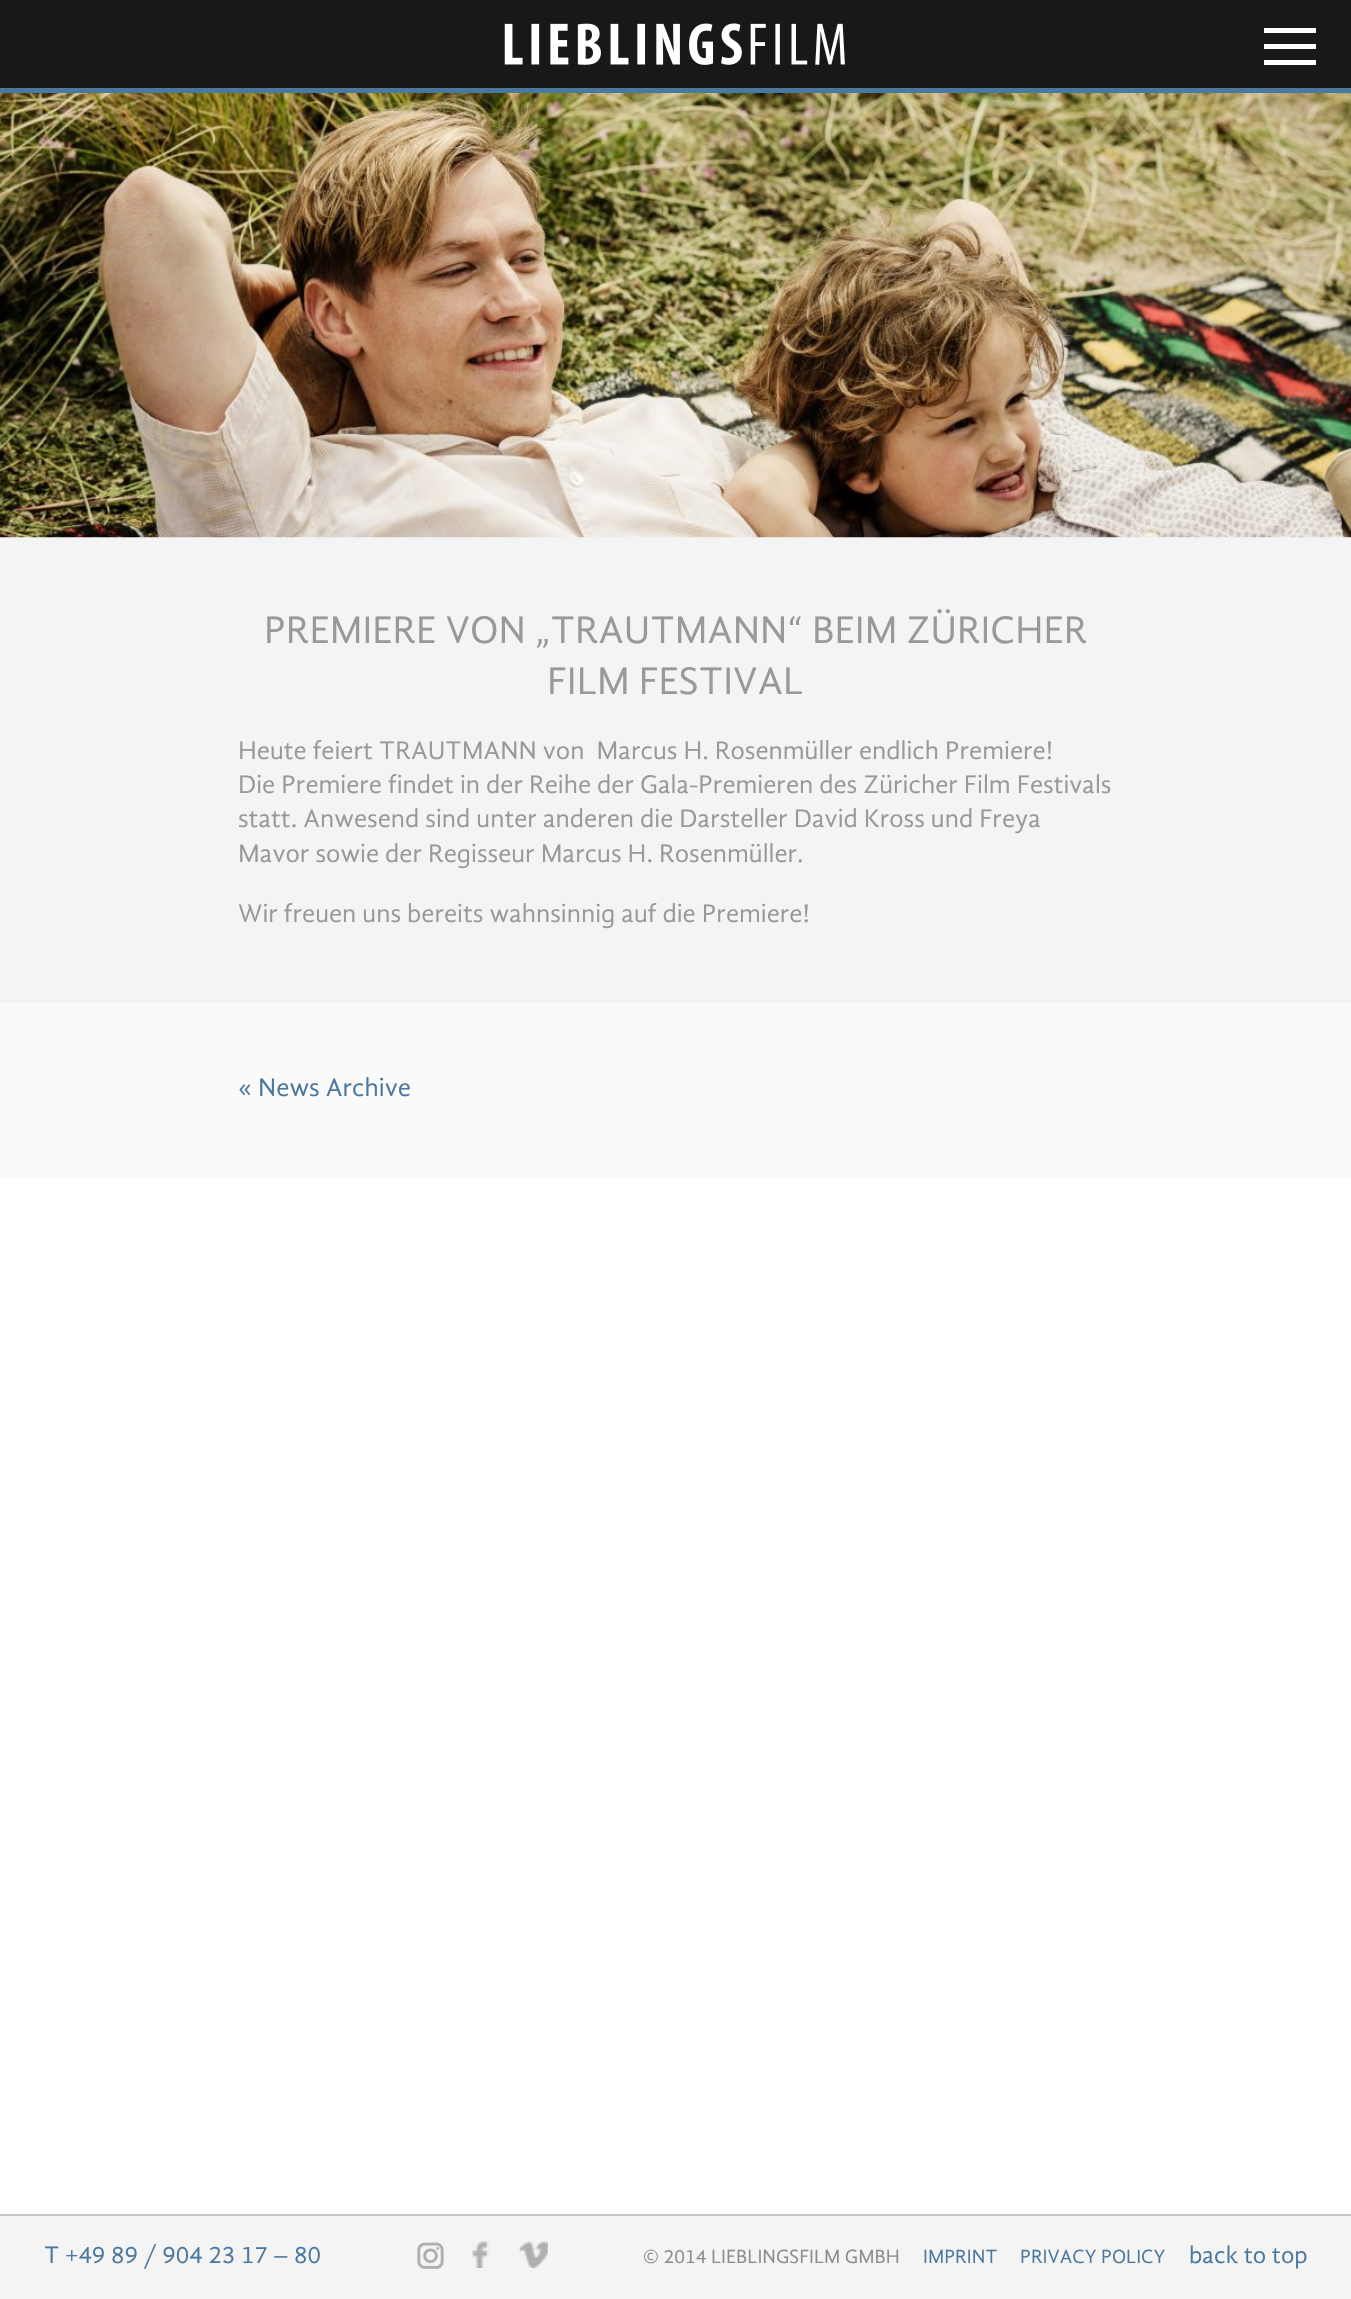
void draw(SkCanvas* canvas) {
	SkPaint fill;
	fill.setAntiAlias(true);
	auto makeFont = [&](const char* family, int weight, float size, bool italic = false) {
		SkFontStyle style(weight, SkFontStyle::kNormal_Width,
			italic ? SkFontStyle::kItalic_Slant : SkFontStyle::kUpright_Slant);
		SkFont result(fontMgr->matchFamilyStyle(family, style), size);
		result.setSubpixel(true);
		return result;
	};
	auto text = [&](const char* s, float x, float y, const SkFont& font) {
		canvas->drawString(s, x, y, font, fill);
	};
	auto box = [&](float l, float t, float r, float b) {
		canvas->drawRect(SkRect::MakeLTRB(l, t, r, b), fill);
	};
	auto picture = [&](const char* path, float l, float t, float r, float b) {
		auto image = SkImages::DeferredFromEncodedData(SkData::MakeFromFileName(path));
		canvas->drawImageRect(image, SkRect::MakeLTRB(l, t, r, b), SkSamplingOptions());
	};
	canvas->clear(0xFFFFFFFF);
	fill.setColor(0xFF181818);
	box(0, 0, 1351, 88);
	fill.setColor(0xFF4B789F);
	box(0, 88, 1351, 93);
	picture("image0.png", 504, 23, 845, 65);
	fill.setColor(0xFFFFFFFF);
	box(1264, 44, 1316, 49);
	box(1264, 28, 1316, 33);
	box(1264, 60, 1316, 65);
	fill.setColor(0xFFF4F4F4);
	box(0, 537, 1351, 1003);
	picture("image1.png", 0, 93, 1351, 538);
	fill.setColor(0xFFFAFAFA);
	box(0, 1003, 1351, 1178);
	fill.setColor(0xFFF4F4F4);
	box(0, 2216, 1351, 2299);
	fill.setColor(0xFFC8C8C8);
	box(0, 2214, 1351, 2216);
	picture("image2.png", 417, 2242, 444, 2269);
	picture("image3.png", 472, 2241, 489, 2268);
	picture("image4.png", 519, 2241, 548, 2268);
	auto font1 = makeFont("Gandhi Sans", 400, 39.4f);
	fill.setColor(0xFF999999);
	text("PREMIERE VON „TRAUTMANN“ BEIM ZÜRICHER", 264, 643, font1);
	text("FILM FESTIVAL", 547, 694, font1);
	auto font2 = makeFont("Gandhi Sans", 400, 26.25f);
	text("Heute feiert TRAUTMANN von  Marcus H. Rosenmüller endlich Premiere!", 238, 759, font2);
	text("Die Premiere findet in der Reihe der Gala-Premieren des Züricher Film Festivals", 238, 793, font2);
	text("statt. Anwesend sind unter anderen die Darsteller David Kross und Freya", 238, 827, font2);
	text("Mavor sowie der Regisseur Marcus H. Rosenmüller.", 238, 862, font2);
	text("Wir freuen uns bereits wahnsinnig auf die Premiere!", 238, 922, font2);
	fill.setColor(0xFF4B789F);
	text("« News Archive", 238, 1096, font2);
	auto font3 = makeFont("Gandhi Sans", 400, 24.5f);
	text("T +49 89 / 904 23 17 – 80", 44, 2263, font3);
	auto font4 = makeFont("Gandhi Sans", 400, 19.6f);
	fill.setColor(0xFF8C8C8C);
	text("© 2014 LIEBLINGSFILM GMBH", 643, 2263, font4);
	fill.setColor(0xFF4B789F);
	text("IMPRINT", 923, 2263, font4);
	text("PRIVACY POLICY", 1020, 2263, font4);
	text("back to top", 1189, 2263, font3);
}
